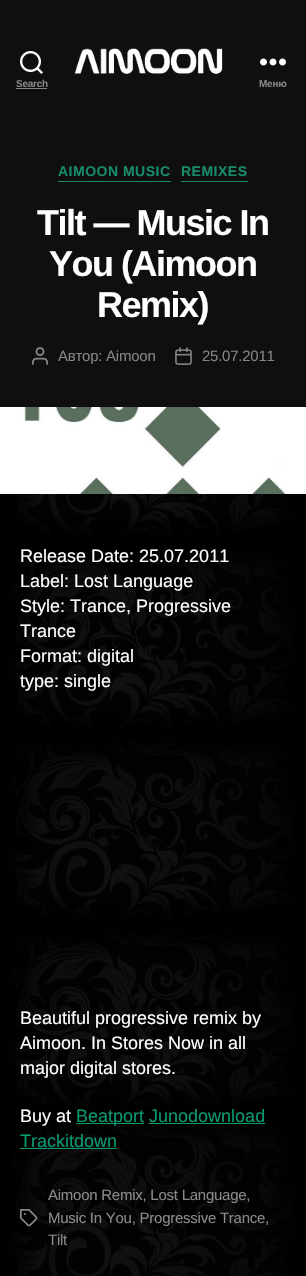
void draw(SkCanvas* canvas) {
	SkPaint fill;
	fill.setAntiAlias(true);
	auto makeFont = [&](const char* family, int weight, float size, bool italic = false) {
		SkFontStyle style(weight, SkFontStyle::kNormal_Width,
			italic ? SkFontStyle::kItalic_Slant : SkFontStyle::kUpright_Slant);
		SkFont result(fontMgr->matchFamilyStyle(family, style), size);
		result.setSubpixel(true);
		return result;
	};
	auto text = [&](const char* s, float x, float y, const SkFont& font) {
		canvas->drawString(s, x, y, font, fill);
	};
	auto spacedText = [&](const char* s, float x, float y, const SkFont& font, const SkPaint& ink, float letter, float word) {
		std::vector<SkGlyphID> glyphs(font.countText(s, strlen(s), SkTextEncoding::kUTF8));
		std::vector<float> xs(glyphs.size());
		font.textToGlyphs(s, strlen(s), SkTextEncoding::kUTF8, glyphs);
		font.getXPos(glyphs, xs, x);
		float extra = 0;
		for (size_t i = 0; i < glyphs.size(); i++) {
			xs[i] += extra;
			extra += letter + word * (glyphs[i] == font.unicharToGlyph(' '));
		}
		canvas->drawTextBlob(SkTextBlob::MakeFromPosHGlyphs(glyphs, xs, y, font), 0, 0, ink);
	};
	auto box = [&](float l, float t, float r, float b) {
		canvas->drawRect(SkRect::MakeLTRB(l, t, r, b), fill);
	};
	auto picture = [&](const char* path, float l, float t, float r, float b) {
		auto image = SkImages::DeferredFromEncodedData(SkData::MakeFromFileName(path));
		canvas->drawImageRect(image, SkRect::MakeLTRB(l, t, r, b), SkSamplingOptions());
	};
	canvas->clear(0xFFFFFFFF);
	picture("image0.png", 0, 494, 306, 1276);
	fill.setColor(0xFF0F0F0F);
	box(0, 0, 306, 407);
	picture("image1.png", 74, 48, 223, 74);
	picture("image2.png", 20, 51, 43, 74);
	fill.setColor(0xFF848484);
	box(16, 88, 47, 89);
	picture("image3.png", 260, 58, 286, 66);
	fill.setColor(0xFF178B6A);
	box(58, 181, 171, 182);
	box(181, 181, 248, 182);
	picture("image4.png", 32, 347, 48, 365);
	picture("image5.png", 175, 347, 192, 365);
	picture("image6.png", 0, 407, 306, 494);
	fill.setColor(0xFF089A71);
	box(76, 1123, 144, 1124);
	box(149, 1123, 265, 1124);
	box(20, 1148, 117, 1149);
	picture("image7.png", 20, 1209, 38, 1227);
	auto font1 = makeFont("Liberation Sans", 700, 10);
	fill.setColor(0xFF848484);
	spacedText("Search", 16, 87, font1, fill, -0.25f, 0);
	spacedText("Меню", 259, 87, font1, fill, -0.25f, 0);
	auto font2 = makeFont("Liberation Sans", 700, 14);
	fill.setColor(0xFF178B6A);
	spacedText("AIMOON MUSIC", 58, 176, font2, fill, 0.5f, 0);
	spacedText("REMIXES", 181, 176, font2, fill, 0.5f, 0);
	auto font3 = makeFont("Liberation Sans", 700, 36);
	fill.setColor(0xFFFFFFFF);
	spacedText("Tilt — Music In", 37, 235, font3, fill, -1.5f, 0);
	spacedText("You (Aimoon", 49, 276, font3, fill, -1.5f, 0);
	spacedText("Remix)", 97, 317, font3, fill, -1.5f, 0);
	auto font4 = makeFont("Liberation Sans", 400, 15);
	fill.setColor(0xFF848484);
	spacedText("Автор: Aimoon", 58, 361, font4, fill, -0.25f, 0);
	spacedText("25.07.2011", 202, 361, font4, fill, -0.25f, 0);
	auto font5 = makeFont("Liberation Sans", 400, 18);
	fill.setColor(0xFFFFFFFF);
	text("Release Date: 25.07.2011", 20, 562, font5);
	text("Label: Lost Language", 20, 587, font5);
	text("Style: Trance, Progressive", 20, 612, font5);
	text("Trance", 20, 637, font5);
	text("Format: digital", 20, 662, font5);
	text("type: single", 20, 687, font5);
	text("Beautiful progressive remix by", 20, 1024, font5);
	text("Aimoon. In Stores Now in all", 20, 1049, font5);
	text("major digital stores.", 20, 1074, font5);
	text("Buy at", 20, 1122, font5);
	fill.setColor(0xFF089A71);
	text("Beatport Junodownload", 76, 1122, font5);
	text("Trackitdown", 20, 1147, font5);
	fill.setColor(0xFF8A8A88);
	spacedText("Aimoon Remix, Lost Language,", 48, 1200, font4, fill, -0.25f, 0);
	spacedText("Music In You, Progressive Trance,", 48, 1223, font4, fill, -0.25f, 0);
	spacedText("Tilt", 48, 1245, font4, fill, -0.25f, 0);
}
